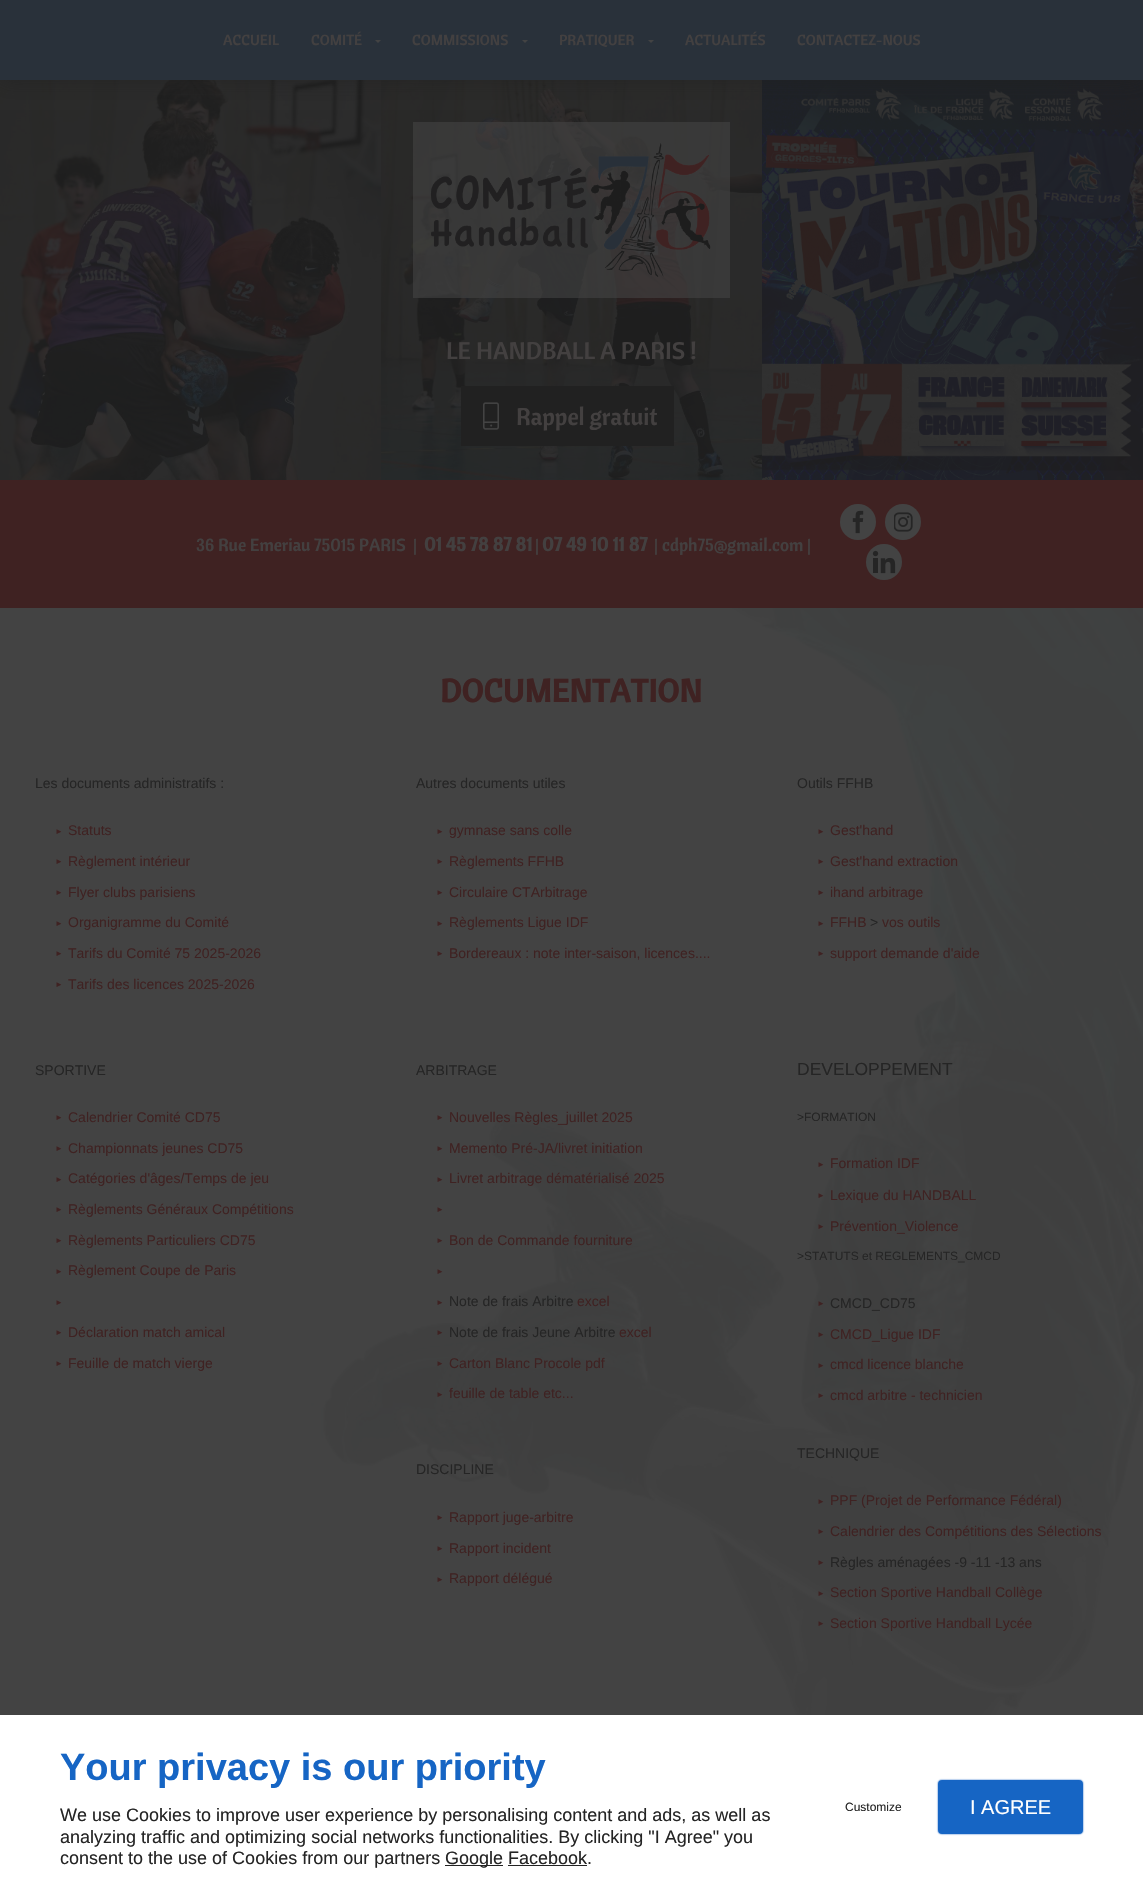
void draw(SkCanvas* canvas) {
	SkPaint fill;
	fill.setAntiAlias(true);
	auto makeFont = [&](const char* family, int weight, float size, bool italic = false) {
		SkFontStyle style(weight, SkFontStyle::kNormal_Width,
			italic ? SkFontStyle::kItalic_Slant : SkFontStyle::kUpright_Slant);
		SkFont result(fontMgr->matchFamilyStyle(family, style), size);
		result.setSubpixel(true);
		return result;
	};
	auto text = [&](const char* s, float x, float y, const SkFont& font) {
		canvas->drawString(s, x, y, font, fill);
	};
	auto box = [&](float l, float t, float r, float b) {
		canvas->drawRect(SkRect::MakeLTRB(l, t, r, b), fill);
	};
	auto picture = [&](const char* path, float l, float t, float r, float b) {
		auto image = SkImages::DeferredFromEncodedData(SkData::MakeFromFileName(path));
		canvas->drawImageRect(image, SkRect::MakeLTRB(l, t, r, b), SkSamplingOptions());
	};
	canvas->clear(0xFF434343);
	picture("image0.png", 311, 608, 1143, 1715);
	fill.setColor(0xFF1D1D1D);
	box(0, 80, 1143, 480);
	picture("image1.png", 0, 80, 381, 480);
	picture("image2.png", 381, 80, 762, 480);
	picture("image3.png", 762, 80, 1143, 480);
	fill.setColor(0x801D1D1D);
	fill.setMaskFilter(SkMaskFilter::MakeBlur(kNormal_SkBlurStyle, 10));
	canvas->drawRect(SkRect::MakeLTRB(0, 0, 1143, 80), fill);
	fill.setMaskFilter(nullptr);
	fill.setColor(0xFF29313A);
	box(0, 0, 1143, 80);
	fill.setColor(0xFF434343);
	canvas->drawPath(SkPathBuilder().moveTo(375, 40).lineTo(381, 40).lineTo(378, 43).close().detach(), fill);
	canvas->drawPath(SkPathBuilder().moveTo(522, 40).lineTo(528, 40).lineTo(525, 43).close().detach(), fill);
	canvas->drawPath(SkPathBuilder().moveTo(648, 40).lineTo(654, 40).lineTo(651, 43).close().detach(), fill);
	fill.setColor(0x99434343);
	box(413, 122, 730, 298);
	picture("image4.png", 430, 143, 711, 277);
	fill.setColor(0xFF212121);
	box(461, 386, 674, 446);
	picture("image5.png", 483, 402, 499, 430);
	fill.setColor(0xFF3F2222);
	box(0, 480, 1143, 608);
	fill.setColor(0xFF434343);
	canvas->drawCircle(858, 522, 18, fill);
	picture("image6.png", 852, 510, 864, 534);
	canvas->drawCircle(903, 522, 18, fill);
	picture("image7.png", 894, 512, 913, 532);
	canvas->drawCircle(884, 562, 18, fill);
	picture("image8.png", 872, 550, 896, 574);
	fill.setColor(0xE6434343);
	box(323, 608, 1143, 1715);
	fill.setColor(0xFFFFFFFF);
	box(0, 1715, 1143, 1900);
	fill.setColor(0xFF222222);
	box(445, 1865, 503, 1866);
	fill.setColor(0x4D1665C4);
	fill.setMaskFilter(SkMaskFilter::MakeBlur(kNormal_SkBlurStyle, 0.5f));
	canvas->drawRoundRect(SkRect::MakeLTRB(937, 1779, 1084, 1835), 5, 5, fill);
	fill.setMaskFilter(nullptr);
	fill.setColor(0xFF1665C4);
	canvas->drawRoundRect(SkRect::MakeLTRB(939, 1781, 1082, 1833), 3, 3, fill);
	fill.setStyle(SkPaint::kStroke_Style);
	fill.setStrokeWidth(2);
	canvas->drawRoundRect(SkRect::MakeLTRB(939, 1781, 1082, 1833), 3, 3, fill);
	auto font1 = makeFont("Cantora One", 400, 14.5f);
	fill.setStyle(SkPaint::kFill_Style);
	fill.setColor(0xFF434040);
	text("ACCUEIL", 223, 45, font1);
	text("COMITÉ", 311, 45, font1);
	text("COMMISSIONS", 412, 45, font1);
	text("PRATIQUER", 559, 45, font1);
	text("ACTUALITÉS", 685, 45, font1);
	text("CONTACTEZ-NOUS", 797, 45, font1);
	auto font2 = makeFont("Cantora One", 400, 24);
	text("LE HANDBALL A PARIS !", 446, 359, font2);
	text("Rappel gratuit", 516, 425, font2);
	auto font3 = makeFont("Cantora One", 400, 17.5f);
	text("36 Rue Emeriau", 196, 551, font3);
	text("75015 PARIS", 314, 551, font3);
	text("|", 413, 551, font3);
	auto font4 = makeFont("Cantora One", 700, 19.25f);
	text("01 45 78 87 81", 424, 551, font4);
	text("|", 535, 551, font3);
	text("07 49 10 11 87", 542, 551, font4);
	text("|", 654, 551, font3);
	text("cdph75@gmail.com", 662, 551, font3);
	text("|", 807, 551, font3);
	auto font5 = makeFont("Cantora One", 700, 32);
	fill.setColor(0xFF3F2222);
	text("DOCUMENTATION", 440, 702, font5);
	auto font6 = makeFont("Liberation Sans", 400, 14);
	fill.setColor(0xFF252525);
	text("Les documents administratifs :", 35, 788, font6);
	auto font7 = makeFont("Liberation Serif", 700, 8);
	fill.setColor(0xFF3F2222);
	text("►", 55, 834, font7);
	text("Statuts", 68, 835, font6);
	text("►", 55, 864, font7);
	text("Règlement intérieur", 68, 866, font6);
	text("►", 55, 895, font7);
	text("Flyer clubs parisiens", 68, 897, font6);
	text("►", 55, 926, font7);
	text("Organigramme du Comité", 68, 927, font6);
	text("►", 55, 956, font7);
	text("Tarifs du Comité 75 2025-2026", 68, 958, font6);
	text("►", 55, 987, font7);
	text("Tarifs des licences 2025-2026", 68, 989, font6);
	fill.setColor(0xFF252525);
	text("Autres documents utiles", 416, 788, font6);
	fill.setColor(0xFF3F2222);
	text("►", 436, 834, font7);
	text("gymnase sans colle", 449, 835, font6);
	text("►", 436, 864, font7);
	text("Règlements FFHB", 449, 866, font6);
	text("►", 436, 895, font7);
	text("Circulaire CTArbitrage", 449, 897, font6);
	text("►", 436, 926, font7);
	text("Règlements Ligue IDF", 449, 927, font6);
	text("►", 436, 956, font7);
	text("Bordereaux : note inter-saison, licences....", 449, 958, font6);
	fill.setColor(0xFF252525);
	text("Outils FFHB", 797, 788, font6);
	fill.setColor(0xFF3F2222);
	text("►", 817, 834, font7);
	text("Gest'hand", 830, 835, font6);
	text("►", 817, 864, font7);
	text("Gest'hand extraction", 830, 866, font6);
	text("►", 817, 895, font7);
	text("ihand arbitrage", 830, 897, font6);
	text("►", 817, 926, font7);
	text("FFHB", 830, 927, font6);
	fill.setColor(0xFF252525);
	text(">", 870, 927, font6);
	fill.setColor(0xFF3F2222);
	text("vos outils", 882, 927, font6);
	text("►", 817, 956, font7);
	text("support demande d'aide", 830, 958, font6);
	fill.setColor(0xFF252525);
	text("SPORTIVE", 35, 1075, font6);
	fill.setColor(0xFF3F2222);
	text("►", 55, 1120, font7);
	text("Calendrier Comité CD75", 68, 1122, font6);
	text("►", 55, 1151, font7);
	text("Championnats jeunes CD75", 68, 1153, font6);
	text("►", 55, 1182, font7);
	text("Catégories d'âges/Temps de jeu", 68, 1183, font6);
	text("►", 55, 1212, font7);
	text("Règlements Généraux Compétitions", 68, 1214, font6);
	text("►", 55, 1243, font7);
	text("Règlements Particuliers CD75", 68, 1245, font6);
	text("►", 55, 1274, font7);
	text("Règlement Coupe de Paris", 68, 1275, font6);
	text("►", 55, 1305, font7);
	text("►", 55, 1335, font7);
	text("Déclaration match amical", 68, 1337, font6);
	text("►", 55, 1366, font7);
	text("Feuille de match vierge", 68, 1368, font6);
	fill.setColor(0xFF252525);
	text("ARBITRAGE", 416, 1075, font6);
	fill.setColor(0xFF3F2222);
	text("►", 436, 1120, font7);
	text("Nouvelles Règles_juillet 2025", 449, 1122, font6);
	text("►", 436, 1151, font7);
	text("Memento Pré-JA/livret initiation", 449, 1153, font6);
	text("►", 436, 1182, font7);
	text("Livret arbitrage dématérialisé 2025", 449, 1183, font6);
	text("►", 436, 1212, font7);
	text("►", 436, 1243, font7);
	text("Bon de Commande fourniture", 449, 1245, font6);
	text("►", 436, 1274, font7);
	text("►", 436, 1305, font7);
	fill.setColor(0xFF252525);
	text("Note de frais Arbitre", 449, 1306, font6);
	fill.setColor(0xFF3F2222);
	text("excel", 577, 1306, font6);
	text("►", 436, 1335, font7);
	fill.setColor(0xFF252525);
	text("Note de frais Jeune Arbitre", 449, 1337, font6);
	fill.setColor(0xFF3F2222);
	text("excel", 619, 1337, font6);
	text("►", 436, 1366, font7);
	text("Carton Blanc Procole pdf", 449, 1368, font6);
	text("►", 436, 1397, font7);
	text("feuille de table etc...", 449, 1398, font6);
	fill.setColor(0xFF252525);
	text("DISCIPLINE", 416, 1474, font6);
	fill.setColor(0xFF3F2222);
	text("►", 436, 1520, font7);
	text("Rapport juge-arbitre", 449, 1522, font6);
	text("►", 436, 1551, font7);
	text("Rapport incident", 449, 1553, font6);
	text("►", 436, 1582, font7);
	text("Rapport délégué", 449, 1583, font6);
	auto font8 = makeFont("Liberation Sans", 400, 17.5f);
	fill.setColor(0xFF252525);
	text("DEVELOPPEMENT", 797, 1075, font8);
	auto font9 = makeFont("Liberation Sans", 400, 12);
	text(">FORMATION", 797, 1121, font9);
	fill.setColor(0xFF3F2222);
	text("►", 817, 1167, font7);
	text("Formation IDF", 830, 1168, font6);
	text("►", 817, 1198, font7);
	text("Lexique du HANDBALL", 830, 1200, font6);
	text("►", 817, 1229, font7);
	text("Prévention_Violence", 830, 1231, font6);
	fill.setColor(0xFF252525);
	text(">STATUTS et REGLEMENTS_CMCD", 797, 1260, font9);
	fill.setColor(0xFF3F2222);
	text("►", 817, 1306, font7);
	fill.setColor(0xFF252525);
	text("CMCD_CD75", 830, 1308, font6);
	fill.setColor(0xFF3F2222);
	text("►", 817, 1337, font7);
	text("CMCD_Ligue IDF", 830, 1339, font6);
	text("►", 817, 1368, font7);
	text("cmcd licence blanche", 830, 1369, font6);
	text("►", 817, 1398, font7);
	text("cmcd arbitre - technicien", 830, 1400, font6);
	fill.setColor(0xFF252525);
	text("TECHNIQUE", 797, 1458, font6);
	fill.setColor(0xFF3F2222);
	text("►", 817, 1504, font7);
	text("PPF (Projet de Performance Fédéral)", 830, 1505, font6);
	text("►", 817, 1534, font7);
	text("Calendrier des Compétitions des Sélections", 830, 1536, font6);
	text("►", 817, 1565, font7);
	fill.setColor(0xFF252525);
	text("Règles aménagées -9 -11 -13 ans", 830, 1567, font6);
	fill.setColor(0xFF3F2222);
	text("►", 817, 1596, font7);
	text("Section Sportive Handball Collège", 830, 1597, font6);
	text("►", 817, 1626, font7);
	text("Section Sportive Handball Lycée", 830, 1628, font6);
	auto font10 = makeFont("Liberation Sans", 700, 38);
	fill.setColor(0xFF1665C4);
	text("Your privacy is our priority", 60, 1780, font10);
	auto font11 = makeFont("Liberation Sans", 400, 18);
	fill.setColor(0xFF252525);
	text("We use Cookies to improve user experience by personalising content and ads, as well as", 60, 1821, font11);
	text("analyzing traffic and optimizing social networks functionalities. By clicking \"I Agree\" you", 60, 1843, font11);
	text("consent to the use of Cookies from our partners", 60, 1864, font11);
	text("Google Facebook.", 445, 1864, font11);
	fill.setColor(0xFF222222);
	box(508, 1865, 587, 1866);
	fill.setColor(0xFF252525);
	text("Customize", 845, 1811, font9);
	auto font12 = makeFont("Liberation Sans", 400, 20);
	fill.setColor(0xFFFFFFFF);
	text("I AGREE", 970, 1814, font12);
}
